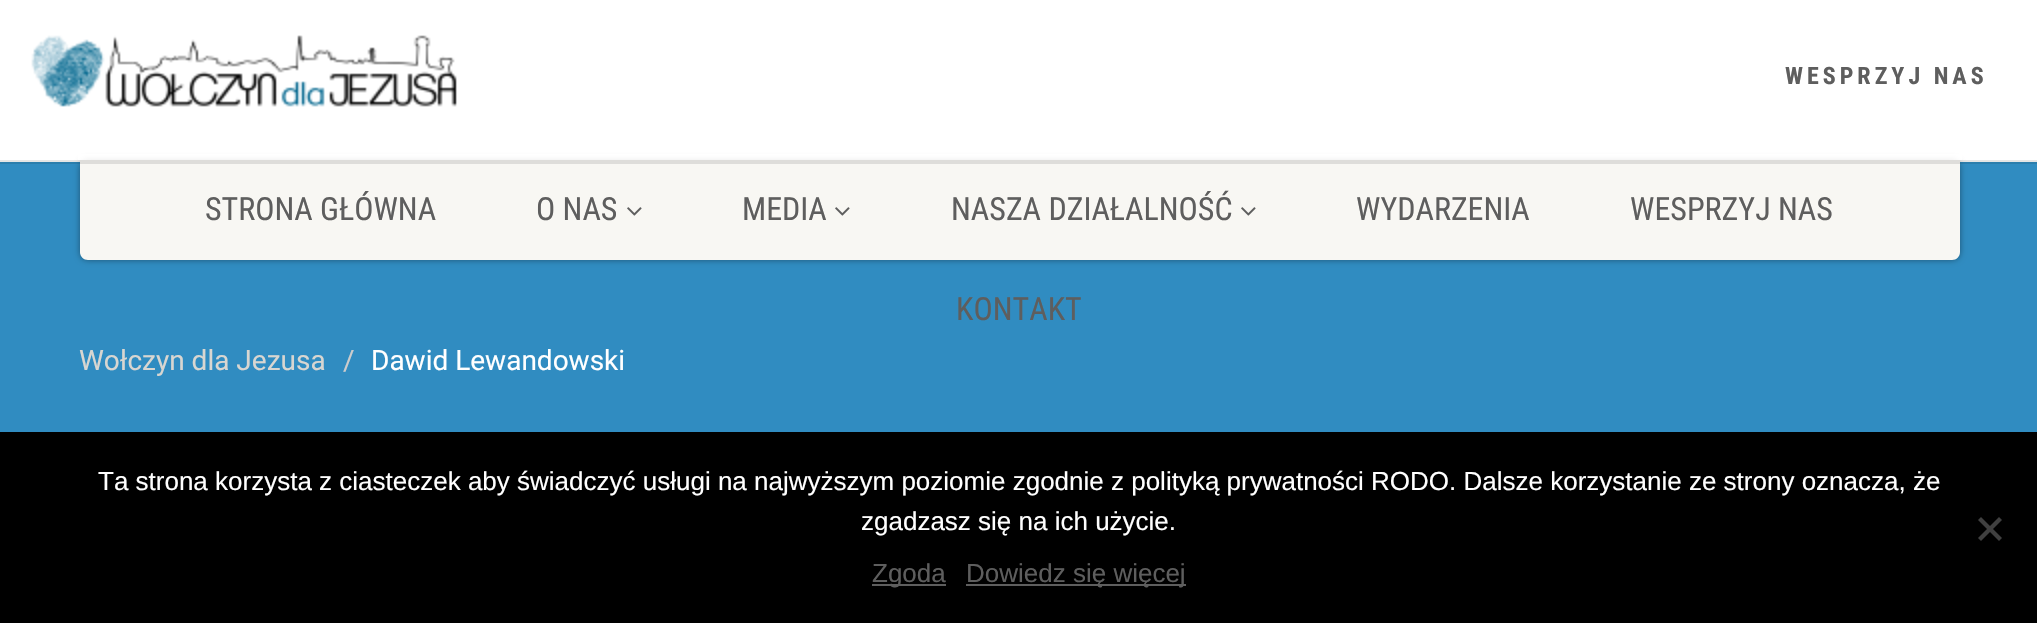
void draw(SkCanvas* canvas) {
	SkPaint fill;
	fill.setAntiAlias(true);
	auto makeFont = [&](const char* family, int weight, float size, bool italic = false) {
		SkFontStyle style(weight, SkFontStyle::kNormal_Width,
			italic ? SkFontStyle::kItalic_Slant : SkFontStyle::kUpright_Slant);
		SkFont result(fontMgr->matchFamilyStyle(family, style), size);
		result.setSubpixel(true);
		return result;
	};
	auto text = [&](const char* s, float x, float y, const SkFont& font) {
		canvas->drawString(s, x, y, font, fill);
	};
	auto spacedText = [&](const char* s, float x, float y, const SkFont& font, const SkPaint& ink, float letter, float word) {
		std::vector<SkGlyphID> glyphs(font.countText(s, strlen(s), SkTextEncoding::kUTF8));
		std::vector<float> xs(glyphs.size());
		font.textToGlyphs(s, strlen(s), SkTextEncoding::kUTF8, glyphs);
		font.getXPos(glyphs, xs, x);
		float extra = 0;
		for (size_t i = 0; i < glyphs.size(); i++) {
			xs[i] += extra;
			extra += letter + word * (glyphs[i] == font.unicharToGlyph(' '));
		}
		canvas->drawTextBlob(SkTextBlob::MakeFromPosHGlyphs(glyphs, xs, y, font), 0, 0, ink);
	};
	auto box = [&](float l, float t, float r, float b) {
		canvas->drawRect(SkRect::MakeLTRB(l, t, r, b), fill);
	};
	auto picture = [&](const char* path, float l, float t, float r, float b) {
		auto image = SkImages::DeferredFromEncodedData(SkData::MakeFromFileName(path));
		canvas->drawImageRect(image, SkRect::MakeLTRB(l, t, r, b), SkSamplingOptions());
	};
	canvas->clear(0xFFFFFFFF);
	fill.setColor(0xFF308CC1);
	box(0, 162, 2037, 432);
	fill.setColor(0x66000000);
	fill.setMaskFilter(SkMaskFilter::MakeBlur(kNormal_SkBlurStyle, 3));
	canvas->drawRoundRect(SkRect::MakeLTRB(80, 160, 1960, 260), 8, 8, fill);
	fill.setMaskFilter(nullptr);
	fill.setColor(0xFFF8F7F3);
	canvas->drawPath(SkPathBuilder().moveTo(80, 160).lineTo(1960, 160).lineTo(1960, 252).cubicTo(1960, 256.5f, 1956.5f, 260, 1952, 260).lineTo(88, 260).cubicTo(83.5f, 260, 80, 256.5f, 80, 252).close().detach(), fill);
	fill.setColor(0x1A000000);
	box(0, 160, 2037, 164);
	fill.setColor(0xCCFFFFFF);
	box(78, 154, 1962, 160);
	picture("image0.png", 31, 35, 457, 107);
	picture("image1.png", 627, 207, 642, 216);
	picture("image1.png", 835, 207, 850, 216);
	picture("image1.png", 1241, 207, 1256, 216);
	fill.setColor(0xFF000000);
	box(0, 432, 2037, 623);
	fill.setColor(0xFF404040);
	canvas->drawPath(SkPathBuilder().moveTo(1999, 517).lineTo(2002, 520).lineTo(1981, 541).lineTo(1978, 538).close().detach(), fill);
	canvas->drawPath(SkPathBuilder().moveTo(1978, 520).lineTo(1981, 517).lineTo(2002, 538).lineTo(1999, 541).close().detach(), fill);
	fill.setColor(0xFF5E5E5E);
	box(872, 584, 946, 586);
	box(966, 584, 1186, 586);
	auto font1 = makeFont("Roboto Condensed", 700, 24);
	spacedText("WESPRZYJ NAS", 1785, 84, font1, fill, 4, 0);
	auto font2 = makeFont("Roboto Condensed", 400, 32);
	text("STRONA GŁÓWNA", 205, 220, font2);
	text("O NAS", 536, 220, font2);
	text("MEDIA", 742, 220, font2);
	text("NASZA DZIAŁALNOŚĆ", 951, 220, font2);
	text("WYDARZENIA", 1356, 220, font2);
	text("WESPRZYJ NAS", 1630, 220, font2);
	text("KONTAKT", 956, 320, font2);
	auto font3 = makeFont("Roboto", 400, 28);
	fill.setColor(0xFFD8D6D1);
	text("Wołczyn dla Jezusa", 79, 370, font3);
	fill.setColor(0xFFCCCCCC);
	text("/", 343, 370, font3);
	fill.setColor(0xFFFFFFFF);
	text("Dawid Lewandowski", 371, 370, font3);
	auto font4 = makeFont("Liberation Sans", 400, 26);
	text("Ta strona korzysta z ciasteczek aby świadczyć usługi na najwyższym poziomie zgodnie z polityką prywatności RODO. Dalsze korzystanie ze strony oznacza, że", 98, 490, font4);
	text("zgadzasz się na ich użycie.", 861, 530, font4);
	fill.setColor(0xFF5E5E5E);
	text("Zgoda", 872, 582, font4);
	text("Dowiedz się więcej", 966, 582, font4);
}
